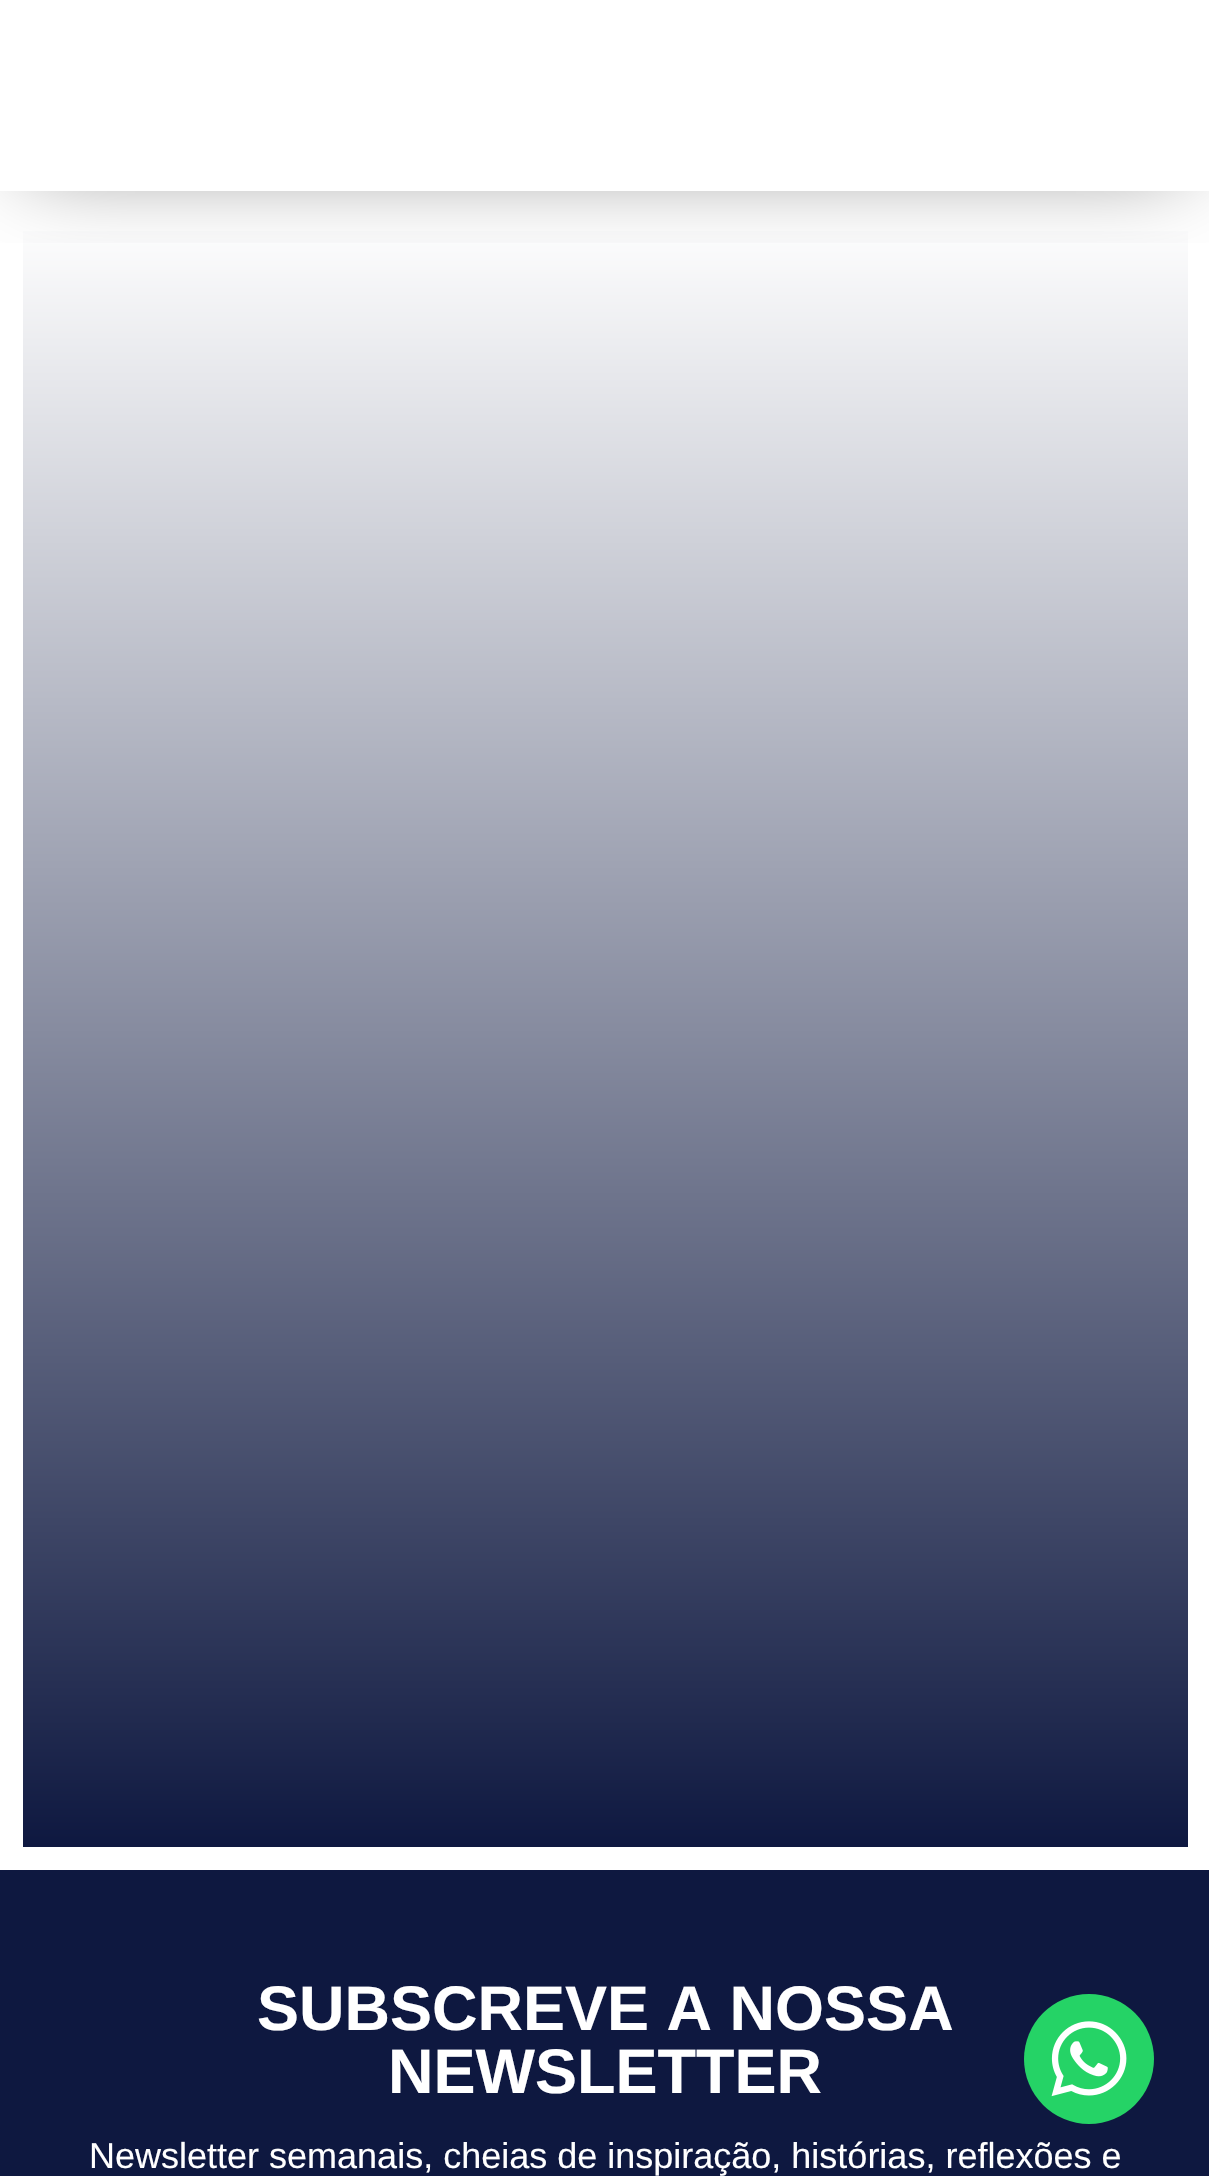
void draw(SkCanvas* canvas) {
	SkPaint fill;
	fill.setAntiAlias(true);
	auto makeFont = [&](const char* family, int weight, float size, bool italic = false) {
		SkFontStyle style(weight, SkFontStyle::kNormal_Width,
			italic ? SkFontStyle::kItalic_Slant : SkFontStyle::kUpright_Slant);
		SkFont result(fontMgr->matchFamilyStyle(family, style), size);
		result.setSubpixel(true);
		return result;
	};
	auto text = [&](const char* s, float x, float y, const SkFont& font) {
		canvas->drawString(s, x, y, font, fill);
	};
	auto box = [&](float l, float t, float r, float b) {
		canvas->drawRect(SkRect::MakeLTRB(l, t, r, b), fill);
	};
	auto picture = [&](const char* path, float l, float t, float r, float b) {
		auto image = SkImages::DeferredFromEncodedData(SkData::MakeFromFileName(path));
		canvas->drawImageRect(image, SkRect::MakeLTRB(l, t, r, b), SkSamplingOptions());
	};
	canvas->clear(0xFFFFFFFF);
	{
		const SkColor colors[] = {0xFFFFFFFF, 0xFF0E1840};
		const float stops[] = {0, 1};
		const SkPoint ends[] = {{605, 214}, {605, 1847}};
		fill.setShader(SkGradientShader::MakeLinear(ends, colors, stops, 2, SkTileMode::kClamp));
		fill.setAlpha(255);
	}
	box(23, 231, 1188, 1847);
	canvas->save();
	canvas->clipRect(SkRect::MakeLTRB(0, 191, 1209, 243));
	fill.setShader(nullptr);
	fill.setColor(0x80000000);
	fill.setMaskFilter(SkMaskFilter::MakeBlur(kNormal_SkBlurStyle, 45));
	canvas->drawRect(SkRect::MakeLTRB(27, 27, 1184, 164), fill);
	fill.setMaskFilter(nullptr);
	canvas->restore();
	fill.setColor(0xFF0E1840);
	box(0, 1870, 1209, 2176);
	fill.setColor(0xFF25D366);
	canvas->drawCircle(1089, 2059, 65, fill);
	picture("image0.png", 1051, 2021, 1127, 2097);
	auto font1 = makeFont("Liberation Sans", 700, 63);
	fill.setColor(0xFFFFFFFF);
	text("SUBSCREVE A NOSSA", 257, 2030, font1);
	text("NEWSLETTER", 388, 2093, font1);
	auto font2 = makeFont("Liberation Sans", 400, 36);
	text("Newsletter semanais, cheias de inspiração, histórias, reflexões e", 89, 2168, font2);
}
